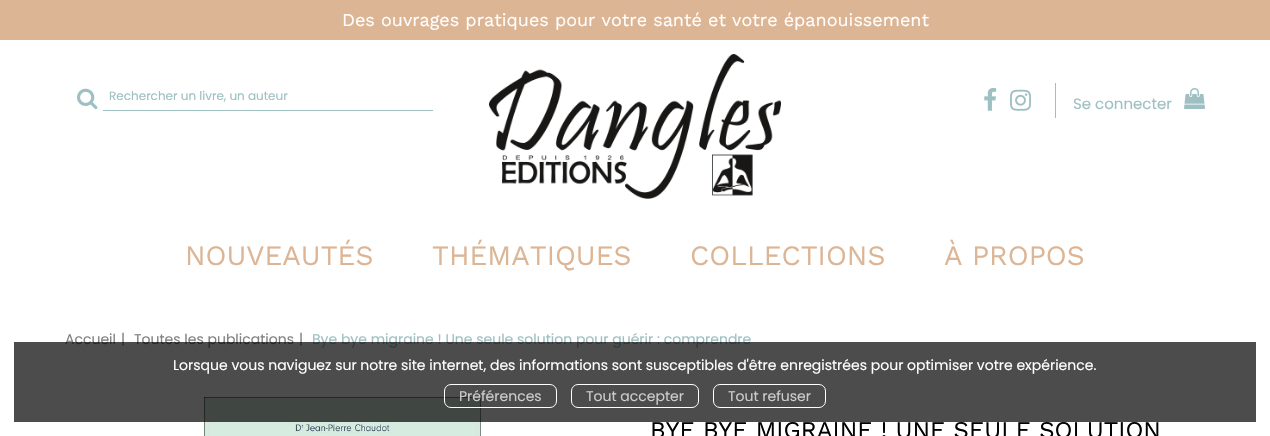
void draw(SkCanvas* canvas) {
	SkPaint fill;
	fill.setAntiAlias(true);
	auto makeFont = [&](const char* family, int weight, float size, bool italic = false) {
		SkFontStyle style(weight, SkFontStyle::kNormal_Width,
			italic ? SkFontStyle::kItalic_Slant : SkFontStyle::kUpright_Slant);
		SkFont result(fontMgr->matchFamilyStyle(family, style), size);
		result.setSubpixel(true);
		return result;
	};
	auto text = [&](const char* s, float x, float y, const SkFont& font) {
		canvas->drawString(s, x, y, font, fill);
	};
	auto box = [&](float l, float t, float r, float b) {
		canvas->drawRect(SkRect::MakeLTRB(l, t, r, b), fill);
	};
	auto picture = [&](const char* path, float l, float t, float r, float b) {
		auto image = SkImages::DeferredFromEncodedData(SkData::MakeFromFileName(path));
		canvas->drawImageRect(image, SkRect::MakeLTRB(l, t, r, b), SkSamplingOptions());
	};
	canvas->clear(0xFFFFFFFF);
	fill.setColor(0xFFDCB595);
	box(0, 0, 1270, 40);
	picture("image0.png", 77, 88, 98, 110);
	fill.setColor(0xFF9EC0C3);
	box(103, 110, 433, 111);
	picture("image1.png", 489, 54, 781, 199);
	picture("image2.png", 984, 88, 997, 111);
	box(1055, 83, 1056, 118);
	picture("image3.png", 1010, 89, 1031, 111);
	picture("image4.png", 1184, 88, 1205, 109);
	picture("image5.png", 204, 397, 481, 436);
	auto font1 = makeFont("Work Sans", 400, 18);
	fill.setColor(0xFFFFFFFF);
	text("Des ouvrages pratiques pour votre santé et votre épanouissement", 342, 26, font1);
	auto font2 = makeFont("Poppins", 400, 12);
	fill.setColor(0xFF9EC0C3);
	text("Rechercher un livre, un auteur", 109, 100, font2);
	auto font3 = makeFont("Poppins", 400, 15);
	text("Se connecter", 1073, 109, font3);
	auto font4 = makeFont("Work Sans", 400, 28);
	fill.setColor(0xFFDCB595);
	text("NOUVEAUTÉS", 185, 265, font4);
	text("THÉMATIQUES", 432, 265, font4);
	text("COLLECTIONS", 690, 265, font4);
	text("À PROPOS", 944, 265, font4);
	auto font5 = makeFont("Poppins", 400, 14);
	fill.setColor(0xFF808080);
	text("Accueil", 65, 344, font5);
	text("|", 121, 344, font5);
	text("Toutes les publications", 134, 344, font5);
	text("|", 299, 344, font5);
	fill.setColor(0xFF9EC0C3);
	text("Bye bye migraine ! Une seule solution pour guérir : comprendre", 312, 344, font5);
	auto font6 = makeFont("Work Sans", 400, 24);
	fill.setColor(0xFF000000);
	text("BYE BYE MIGRAINE ! UNE SEULE SOLUTION", 650, 438, font6);
	fill.setColor(0xB3000000);
	box(14, 342, 1256, 422);
	fill.setColor(0xFFFFFFFF);
	text("Lorsque vous naviguez sur notre site internet, des informations sont susceptibles d'être enregistrées pour optimiser votre expérience.", 173, 370, font5);
	fill.setStyle(SkPaint::kStroke_Style);
	fill.setStrokeWidth(1);
	canvas->drawRoundRect(SkRect::MakeLTRB(444.5f, 384.5f, 556.5f, 407.5f), 6.5f, 6.5f, fill);
	fill.setStyle(SkPaint::kFill_Style);
	fill.setColor(0xFFCCCCCC);
	text("Préférences", 459, 401, font5);
	fill.setStyle(SkPaint::kStroke_Style);
	fill.setColor(0xFFFFFFFF);
	canvas->drawRoundRect(SkRect::MakeLTRB(571.5f, 384.5f, 698.5f, 407.5f), 6.5f, 6.5f, fill);
	fill.setStyle(SkPaint::kFill_Style);
	fill.setColor(0xFFCCCCCC);
	text("Tout accepter", 586, 401, font5);
	fill.setStyle(SkPaint::kStroke_Style);
	fill.setColor(0xFFFFFFFF);
	canvas->drawRoundRect(SkRect::MakeLTRB(713.5f, 384.5f, 825.5f, 407.5f), 6.5f, 6.5f, fill);
	fill.setStyle(SkPaint::kFill_Style);
	fill.setColor(0xFFCCCCCC);
	text("Tout refuser", 728, 401, font5);
}
